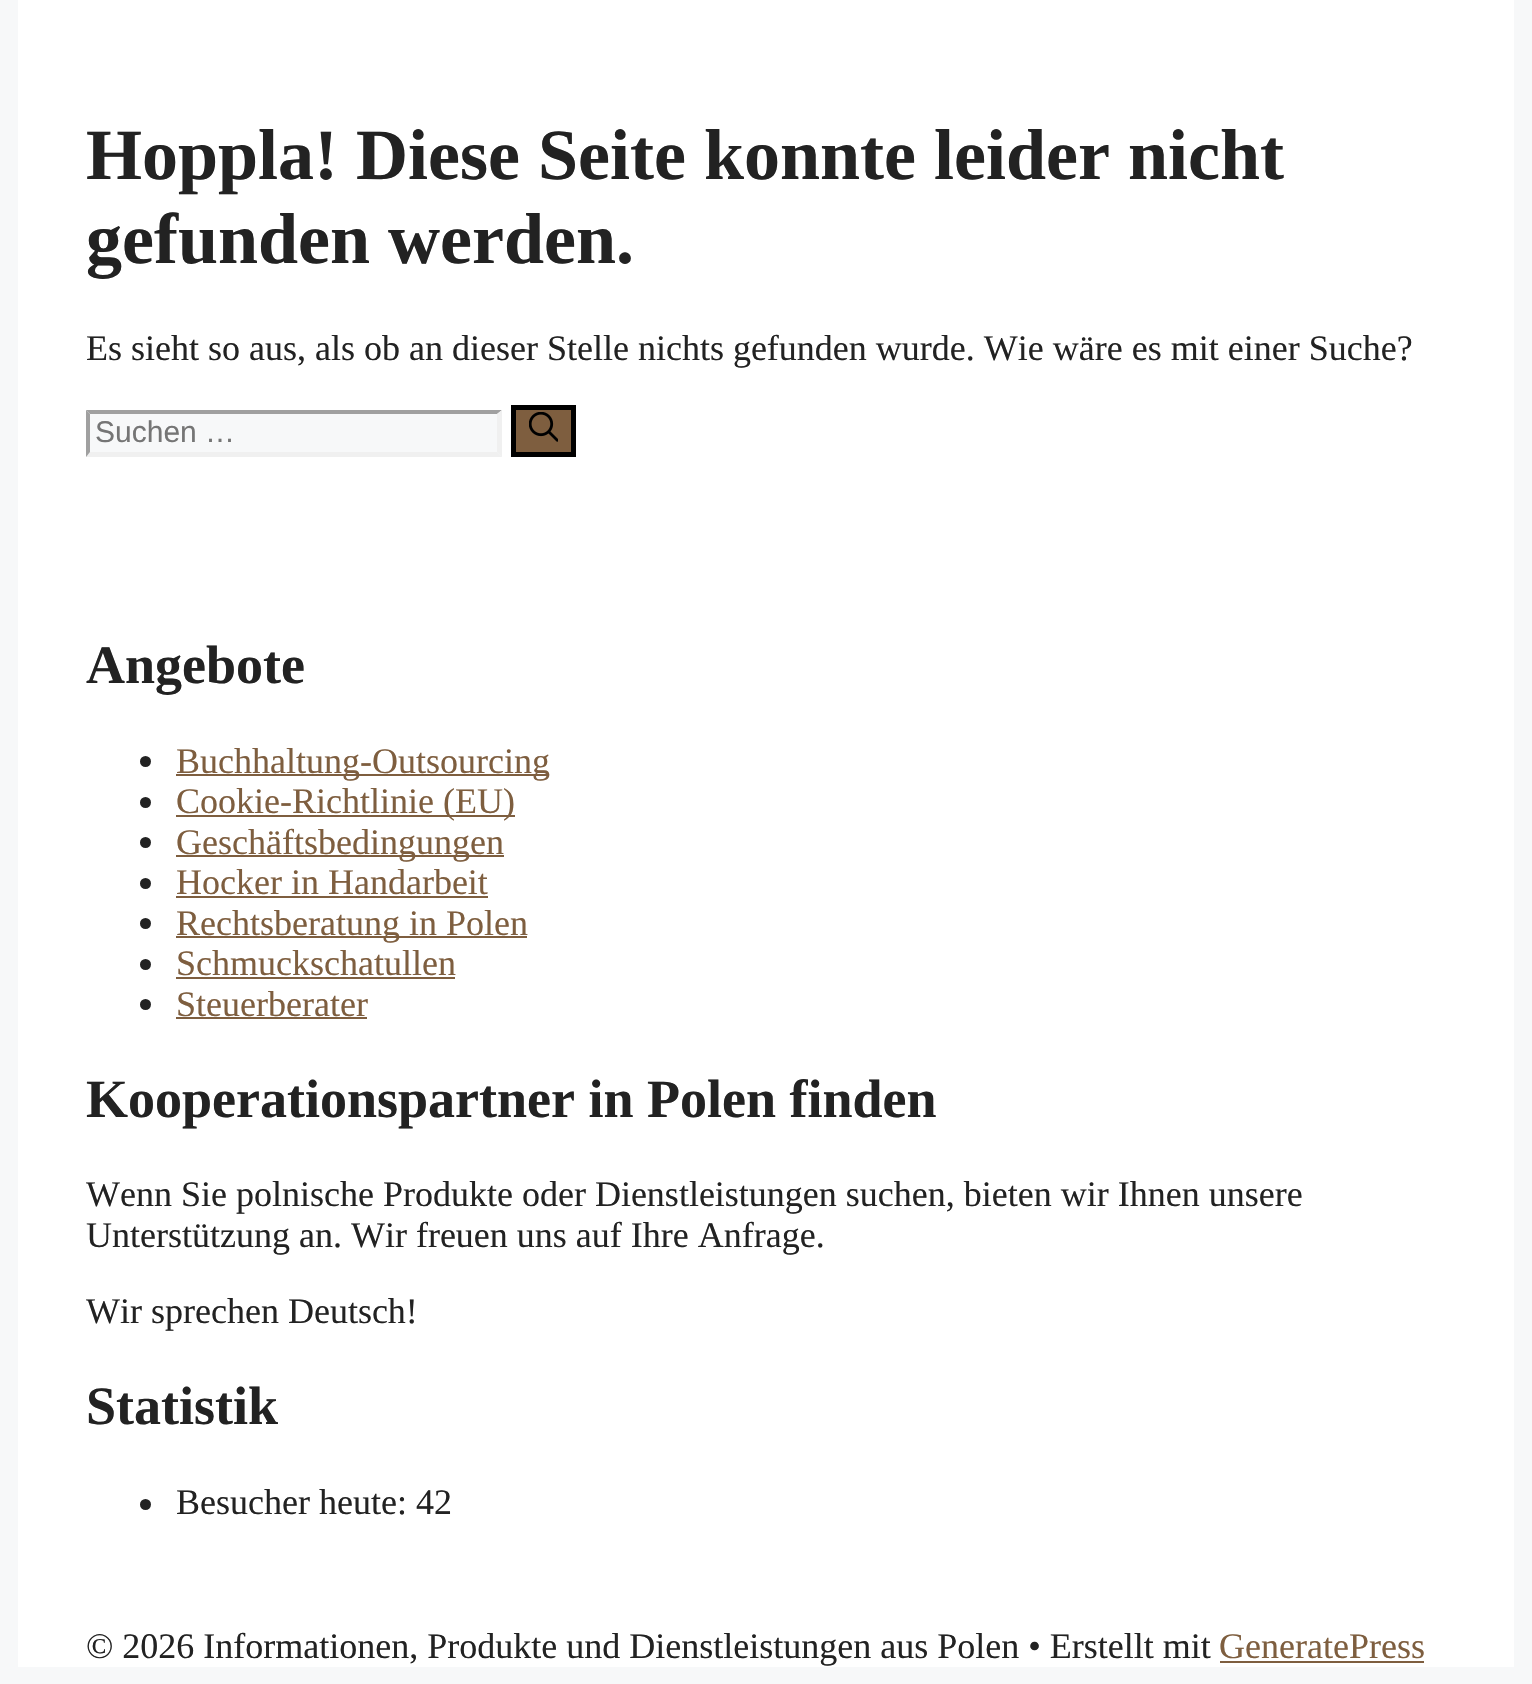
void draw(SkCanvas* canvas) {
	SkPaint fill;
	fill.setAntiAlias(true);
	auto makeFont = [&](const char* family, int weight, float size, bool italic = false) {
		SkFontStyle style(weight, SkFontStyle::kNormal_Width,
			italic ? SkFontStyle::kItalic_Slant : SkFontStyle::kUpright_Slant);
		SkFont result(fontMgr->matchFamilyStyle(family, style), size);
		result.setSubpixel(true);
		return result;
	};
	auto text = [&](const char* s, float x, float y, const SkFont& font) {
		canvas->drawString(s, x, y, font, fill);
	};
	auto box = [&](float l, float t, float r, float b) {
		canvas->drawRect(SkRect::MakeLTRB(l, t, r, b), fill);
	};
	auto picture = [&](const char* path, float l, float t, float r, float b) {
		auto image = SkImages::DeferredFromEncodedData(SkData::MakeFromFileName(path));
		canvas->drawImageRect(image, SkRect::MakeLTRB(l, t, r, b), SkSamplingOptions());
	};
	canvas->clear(0xFFF7F8F9);
	fill.setColor(0xFFFFFFFF);
	box(18, 0, 1514, 1667);
	fill.setColor(0xFFF7F8F9);
	box(86, 410, 502, 457);
	fill.setColor(0xFFA0A0A0);
	canvas->drawPath(SkPathBuilder().moveTo(86, 410).lineTo(502, 410).lineTo(497, 414).lineTo(90, 414).close().detach(), fill);
	fill.setColor(0xFFF0F0F0);
	canvas->drawPath(SkPathBuilder().moveTo(502, 410).lineTo(502, 457).lineTo(497, 452).lineTo(497, 414).close().detach(), fill);
	canvas->drawPath(SkPathBuilder().moveTo(502, 457).lineTo(86, 457).lineTo(90, 452).lineTo(497, 452).close().detach(), fill);
	fill.setColor(0xFFA0A0A0);
	canvas->drawPath(SkPathBuilder().moveTo(86, 457).lineTo(86, 410).lineTo(90, 414).lineTo(90, 452).close().detach(), fill);
	fill.setColor(0xFF7E5E3F);
	canvas->drawRect(SkRect::MakeLTRB(513.5f, 407.5f, 573.5f, 454.5f), fill);
	fill.setStyle(SkPaint::kStroke_Style);
	fill.setStrokeWidth(5);
	fill.setColor(0xFF000000);
	canvas->drawRect(SkRect::MakeLTRB(513.5f, 407.5f, 573.5f, 454.5f), fill);
	picture("image0.png", 529, 412, 558, 442);
	fill.setStyle(SkPaint::kFill_Style);
	fill.setColor(0xFF222222);
	canvas->drawCircle(145.5f, 761.5f, 5.5f, fill);
	fill.setColor(0xFF7E5E3F);
	box(176, 774, 549, 776);
	fill.setColor(0xFF222222);
	canvas->drawCircle(145.5f, 802.5f, 5.5f, fill);
	fill.setColor(0xFF7E5E3F);
	box(176, 815, 515, 817);
	fill.setColor(0xFF222222);
	canvas->drawCircle(145.5f, 842.5f, 5.5f, fill);
	fill.setColor(0xFF7E5E3F);
	box(176, 855, 504, 857);
	fill.setColor(0xFF222222);
	canvas->drawCircle(145.5f, 883.5f, 5.5f, fill);
	fill.setColor(0xFF7E5E3F);
	box(176, 896, 488, 898);
	fill.setColor(0xFF222222);
	canvas->drawCircle(145.5f, 923.5f, 5.5f, fill);
	fill.setColor(0xFF7E5E3F);
	box(176, 936, 527, 938);
	fill.setColor(0xFF222222);
	canvas->drawCircle(145.5f, 964.5f, 5.5f, fill);
	fill.setColor(0xFF7E5E3F);
	box(176, 977, 455, 979);
	fill.setColor(0xFF222222);
	canvas->drawCircle(145.5f, 1004.5f, 5.5f, fill);
	fill.setColor(0xFF7E5E3F);
	box(176, 1017, 367, 1019);
	fill.setColor(0xFF222222);
	canvas->drawCircle(145.5f, 1504.5f, 5.5f, fill);
	fill.setColor(0xFF7E5E3F);
	box(1220, 1661, 1424, 1663);
	auto font1 = makeFont("Liberation Serif", 700, 72);
	fill.setColor(0xFF222222);
	text("Hoppla! Diese Seite konnte leider nicht", 86, 179, font1);
	text("gefunden werden.", 86, 263, font1);
	auto font2 = makeFont("Liberation Serif", 400, 36);
	text("Es sieht so aus, als ob an dieser Stelle nichts gefunden wurde. Wie wäre es mit einer Suche?", 86, 360, font2);
	auto font3 = makeFont("Liberation Sans", 400, 30);
	fill.setColor(0xFF757575);
	text("Suchen …", 95, 442, font3);
	auto font4 = makeFont("Liberation Serif", 700, 54);
	fill.setColor(0xFF222222);
	text("Angebote", 86, 683, font4);
	fill.setColor(0xFF7E5E3F);
	text("Buchhaltung-Outsourcing", 176, 773, font2);
	text("Cookie-Richtlinie (EU)", 176, 813, font2);
	text("Geschäftsbedingungen", 176, 854, font2);
	text("Hocker in Handarbeit", 176, 894, font2);
	text("Rechtsberatung in Polen", 176, 935, font2);
	text("Schmuckschatullen", 176, 975, font2);
	text("Steuerberater", 176, 1016, font2);
	fill.setColor(0xFF222222);
	text("Kooperationspartner in Polen finden", 86, 1117, font4);
	text("Wenn Sie polnische Produkte oder Dienstleistungen suchen, bieten wir Ihnen unsere", 86, 1206, font2);
	text("Unterstützung an. Wir freuen uns auf Ihre Anfrage.", 86, 1247, font2);
	text("Wir sprechen Deutsch!", 86, 1323, font2);
	text("Statistik", 86, 1424, font4);
	text("Besucher heute: 42", 176, 1514, font2);
	text("© 2026 Informationen, Produkte und Dienstleistungen aus Polen • Erstellt mit", 86, 1658, font2);
	fill.setColor(0xFF7E5E3F);
	text("GeneratePress", 1219, 1658, font2);
}
